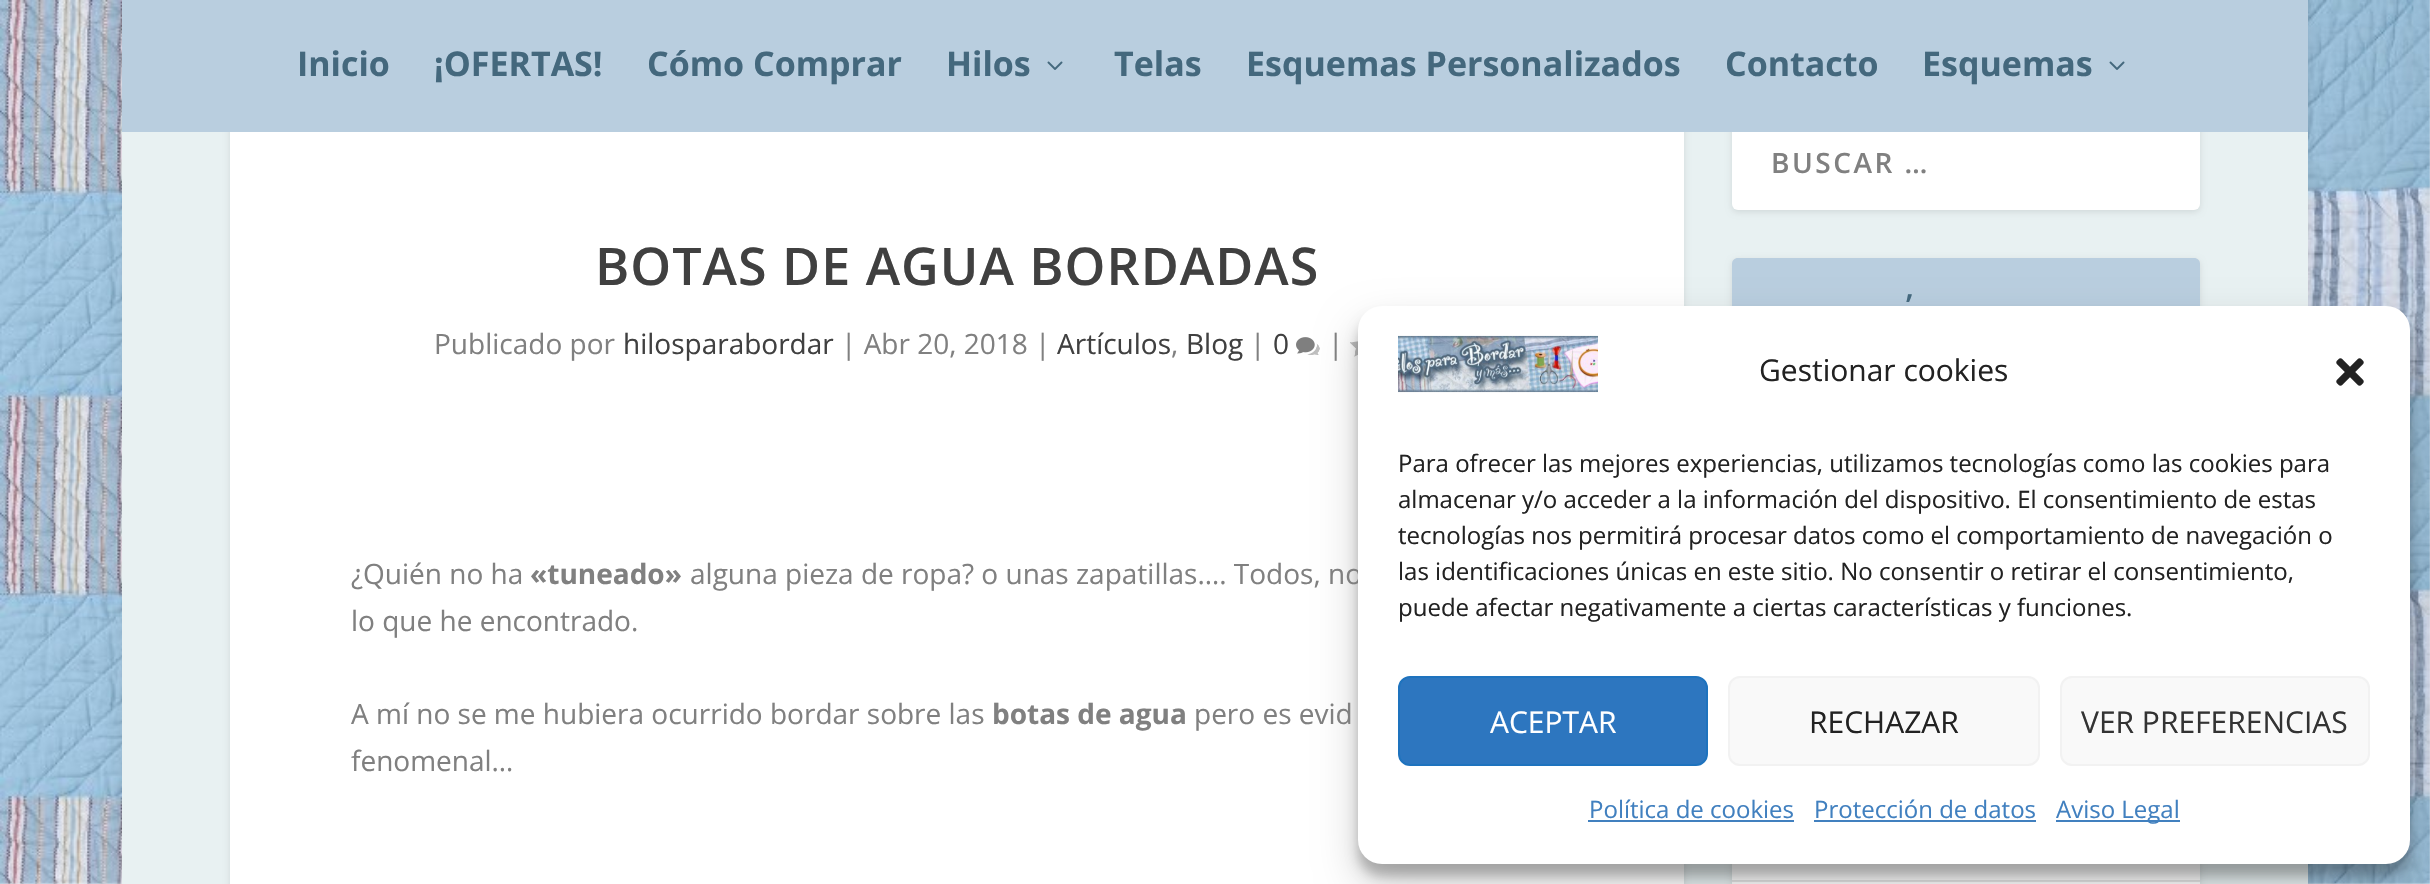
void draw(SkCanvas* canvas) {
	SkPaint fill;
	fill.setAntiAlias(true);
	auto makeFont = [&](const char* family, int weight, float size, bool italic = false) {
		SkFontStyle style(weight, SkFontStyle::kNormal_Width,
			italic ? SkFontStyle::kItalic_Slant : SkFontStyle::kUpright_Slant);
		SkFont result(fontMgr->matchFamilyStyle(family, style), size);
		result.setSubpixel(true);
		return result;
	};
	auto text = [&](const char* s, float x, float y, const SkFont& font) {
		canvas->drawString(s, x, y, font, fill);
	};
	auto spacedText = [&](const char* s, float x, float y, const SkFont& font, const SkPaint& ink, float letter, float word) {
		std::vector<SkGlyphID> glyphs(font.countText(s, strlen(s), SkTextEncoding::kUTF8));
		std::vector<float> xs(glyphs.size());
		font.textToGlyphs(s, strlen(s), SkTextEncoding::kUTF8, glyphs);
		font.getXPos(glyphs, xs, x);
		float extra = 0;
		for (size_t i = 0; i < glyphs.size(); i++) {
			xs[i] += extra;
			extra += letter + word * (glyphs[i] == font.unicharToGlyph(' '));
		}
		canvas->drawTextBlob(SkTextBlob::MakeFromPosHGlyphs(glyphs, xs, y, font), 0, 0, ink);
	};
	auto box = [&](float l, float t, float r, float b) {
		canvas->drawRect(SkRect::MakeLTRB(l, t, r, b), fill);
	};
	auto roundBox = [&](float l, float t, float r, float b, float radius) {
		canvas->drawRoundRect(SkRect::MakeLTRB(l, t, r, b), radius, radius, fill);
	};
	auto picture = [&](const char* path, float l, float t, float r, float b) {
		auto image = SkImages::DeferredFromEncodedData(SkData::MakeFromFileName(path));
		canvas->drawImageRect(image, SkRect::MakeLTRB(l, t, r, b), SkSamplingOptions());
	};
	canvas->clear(0xFFECF0F5);
	picture("image0.png", 0, 0, 2430, 884);
	fill.setColor(0x1A000000);
	fill.setMaskFilter(SkMaskFilter::MakeBlur(kNormal_SkBlurStyle, 6));
	canvas->drawRect(SkRect::MakeLTRB(122, -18, 2308, 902), fill);
	fill.setMaskFilter(nullptr);
	fill.setColor(0xFFE8F1F2);
	box(122, 132, 2308, 884);
	fill.setColor(0x1A000000);
	fill.setMaskFilter(SkMaskFilter::MakeBlur(kNormal_SkBlurStyle, 3));
	canvas->drawRoundRect(SkRect::MakeLTRB(1732, 114, 2200, 212), 6, 6, fill);
	fill.setMaskFilter(nullptr);
	fill.setColor(0xFFFFFFFF);
	roundBox(1732, 112, 2200, 210, 6);
	fill.setColor(0x1A000000);
	fill.setMaskFilter(SkMaskFilter::MakeBlur(kNormal_SkBlurStyle, 3));
	canvas->drawRoundRect(SkRect::MakeLTRB(230, 114, 1684, 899), 6, 6, fill);
	fill.setMaskFilter(nullptr);
	fill.setColor(0xFFB9CEDF);
	box(122, 0, 2308, 132);
	picture("image1.png", 1047, 61, 1063, 70);
	picture("image1.png", 2109, 61, 2125, 70);
	fill.setColor(0x1A000000);
	fill.setMaskFilter(SkMaskFilter::MakeBlur(kNormal_SkBlurStyle, 3));
	canvas->drawRoundRect(SkRect::MakeLTRB(1732, 260, 2200, 450), 6, 6, fill);
	fill.setMaskFilter(nullptr);
	fill.setColor(0xFFB9CEDF);
	canvas->drawPath(SkPathBuilder().moveTo(1738, 258).lineTo(2194, 258).cubicTo(2197.5f, 258, 2200, 260.5f, 2200, 264).lineTo(2200, 350).lineTo(1732, 350).lineTo(1732, 264).cubicTo(1732, 260.5f, 1734.5f, 258, 1738, 258).close().detach(), fill);
	fill.setColor(0x1A000000);
	fill.setMaskFilter(SkMaskFilter::MakeBlur(kNormal_SkBlurStyle, 3));
	canvas->drawRoundRect(SkRect::MakeLTRB(1732, 498, 2200, 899), 6, 6, fill);
	fill.setMaskFilter(nullptr);
	fill.setColor(0xFFFFFFFF);
	box(1732, 864, 2200, 884);
	fill.setColor(0xFFE6E6E6);
	box(1732, 880, 2200, 882);
	fill.setColor(0xFFFFFFFF);
	box(230, 132, 1684, 884);
	picture("image2.png", 1296, 337, 1320, 355);
	picture("image3.png", 1350, 341, 1358, 357);
	fill.setColor(0x3B000000);
	fill.setMaskFilter(SkMaskFilter::MakeBlur(kNormal_SkBlurStyle, 6));
	canvas->drawRoundRect(SkRect::MakeLTRB(1358, 318, 2410, 876), 24, 24, fill);
	fill.setMaskFilter(nullptr);
	fill.setColor(0x30000000);
	fill.setMaskFilter(SkMaskFilter::MakeBlur(kNormal_SkBlurStyle, 20));
	canvas->drawRoundRect(SkRect::MakeLTRB(1358, 326, 2410, 884), 24, 24, fill);
	fill.setMaskFilter(nullptr);
	auto font1 = makeFont("Open Sans", 700, 34);
	fill.setColor(0xFF44687D);
	text("Inicio", 297, 76, font1);
	text("¡OFERTAS!", 434, 76, font1);
	text("Cómo Comprar", 647, 76, font1);
	text("Hilos", 946, 76, font1);
	text("Telas", 1114, 76, font1);
	text("Esquemas Personalizados", 1246, 76, font1);
	text("Contacto", 1725, 76, font1);
	text("Esquemas", 1922, 76, font1);
	auto font2 = makeFont("Open Sans", 600, 28);
	fill.setColor(0xFF808080);
	spacedText("BUSCAR …", 1771, 173, font2, fill, 2.5f, 0);
	auto font3 = makeFont("Open Sans", 600, 32);
	fill.setColor(0xFF44687D);
	spacedText("’", 1906, 317, font3, fill, 2.5f, 0);
	auto font4 = makeFont("Open Sans", 600, 52);
	fill.setColor(0xFF404040);
	spacedText("BOTAS DE AGUA BORDADAS", 595, 285, font4, fill, 1, 0);
	auto font5 = makeFont("Open Sans", 400, 28);
	fill.setColor(0xFF808080);
	text("Publicado por", 434, 354, font5);
	fill.setColor(0xFF404040);
	text("hilosparabordar", 623, 354, font5);
	fill.setColor(0xFF808080);
	text("| Abr 20, 2018 |", 841, 354, font5);
	fill.setColor(0xFF404040);
	text("Artículos", 1057, 354, font5);
	fill.setColor(0xFF808080);
	text(",", 1171, 354, font5);
	fill.setColor(0xFF404040);
	text("Blog", 1186, 354, font5);
	fill.setColor(0xFF808080);
	text("|", 1250, 354, font5);
	fill.setColor(0xFF404040);
	text("0", 1273, 354, font5);
	fill.setColor(0xFF808080);
	text("|", 1328, 354, font5);
	text("¿Quién no ha", 351, 584, font5);
	auto font6 = makeFont("Open Sans", 700, 28);
	text("«tuneado»", 530, 584, font6);
	text("alguna pieza de ropa? o unas zapatillas…. Todos, no", 690, 584, font5);
	text("lo que he encontrado.", 351, 631, font5);
	text("A mí no se me hubiera ocurrido bordar sobre las", 351, 724, font5);
	text("botas de agua", 992, 724, font6);
	text("pero es evid", 1194, 724, font5);
	text("fenomenal…", 351, 771, font5);
	fill.setColor(0xFFFFFFFF);
	roundBox(1358, 306, 2410, 864, 24);
	picture("image4.png", 1398, 335, 1598, 393);
	auto font7 = makeFont("Open Sans", 400, 30);
	fill.setColor(0xFF222222);
	text("Gestionar cookies", 1759, 381, font7);
	picture("image5.png", 2336, 358, 2364, 386);
	auto font8 = makeFont("Open Sans", 400, 24);
	text("Para ofrecer las mejores experiencias, utilizamos tecnologías como las cookies para", 1398, 472, font8);
	text("almacenar y/o acceder a la información del dispositivo. El consentimiento de estas", 1398, 508, font8);
	text("tecnologías nos permitirá procesar datos como el comportamiento de navegación o", 1398, 544, font8);
	text("las identificaciones únicas en este sitio. No consentir o retirar el consentimiento,", 1398, 580, font8);
	text("puede afectar negativamente a ciertas características y funciones.", 1398, 616, font8);
	fill.setColor(0xFF2D76BF);
	canvas->drawRoundRect(SkRect::MakeLTRB(1399, 677, 1707, 765), 11, 11, fill);
	fill.setStyle(SkPaint::kStroke_Style);
	fill.setStrokeWidth(2);
	fill.setColor(0xFF1E73BE);
	canvas->drawRoundRect(SkRect::MakeLTRB(1399, 677, 1707, 765), 11, 11, fill);
	fill.setStyle(SkPaint::kFill_Style);
	fill.setColor(0xFFFFFFFF);
	text("ACEPTAR", 1490, 733, font7);
	fill.setColor(0xFFF9F9F9);
	canvas->drawRoundRect(SkRect::MakeLTRB(1729, 677, 2039, 765), 11, 11, fill);
	fill.setStyle(SkPaint::kStroke_Style);
	fill.setColor(0xFFF2F2F2);
	canvas->drawRoundRect(SkRect::MakeLTRB(1729, 677, 2039, 765), 11, 11, fill);
	fill.setStyle(SkPaint::kFill_Style);
	fill.setColor(0xFF222222);
	text("RECHAZAR", 1809, 733, font7);
	fill.setColor(0xFFF9F9F9);
	canvas->drawRoundRect(SkRect::MakeLTRB(2061, 677, 2369, 765), 11, 11, fill);
	fill.setStyle(SkPaint::kStroke_Style);
	fill.setColor(0xFFF2F2F2);
	canvas->drawRoundRect(SkRect::MakeLTRB(2061, 677, 2369, 765), 11, 11, fill);
	fill.setStyle(SkPaint::kFill_Style);
	fill.setColor(0xFF333333);
	text("VER PREFERENCIAS", 2081, 733, font7);
	fill.setColor(0xFF4180BF);
	text("Política de cookies", 1589, 818, font8);
	box(1588, 820, 1794, 822);
	text("Protección de datos", 1814, 818, font8);
	box(1814, 820, 2036, 822);
	box(2056, 820, 2180, 822);
	text("Aviso Legal", 2056, 818, font8);
}
